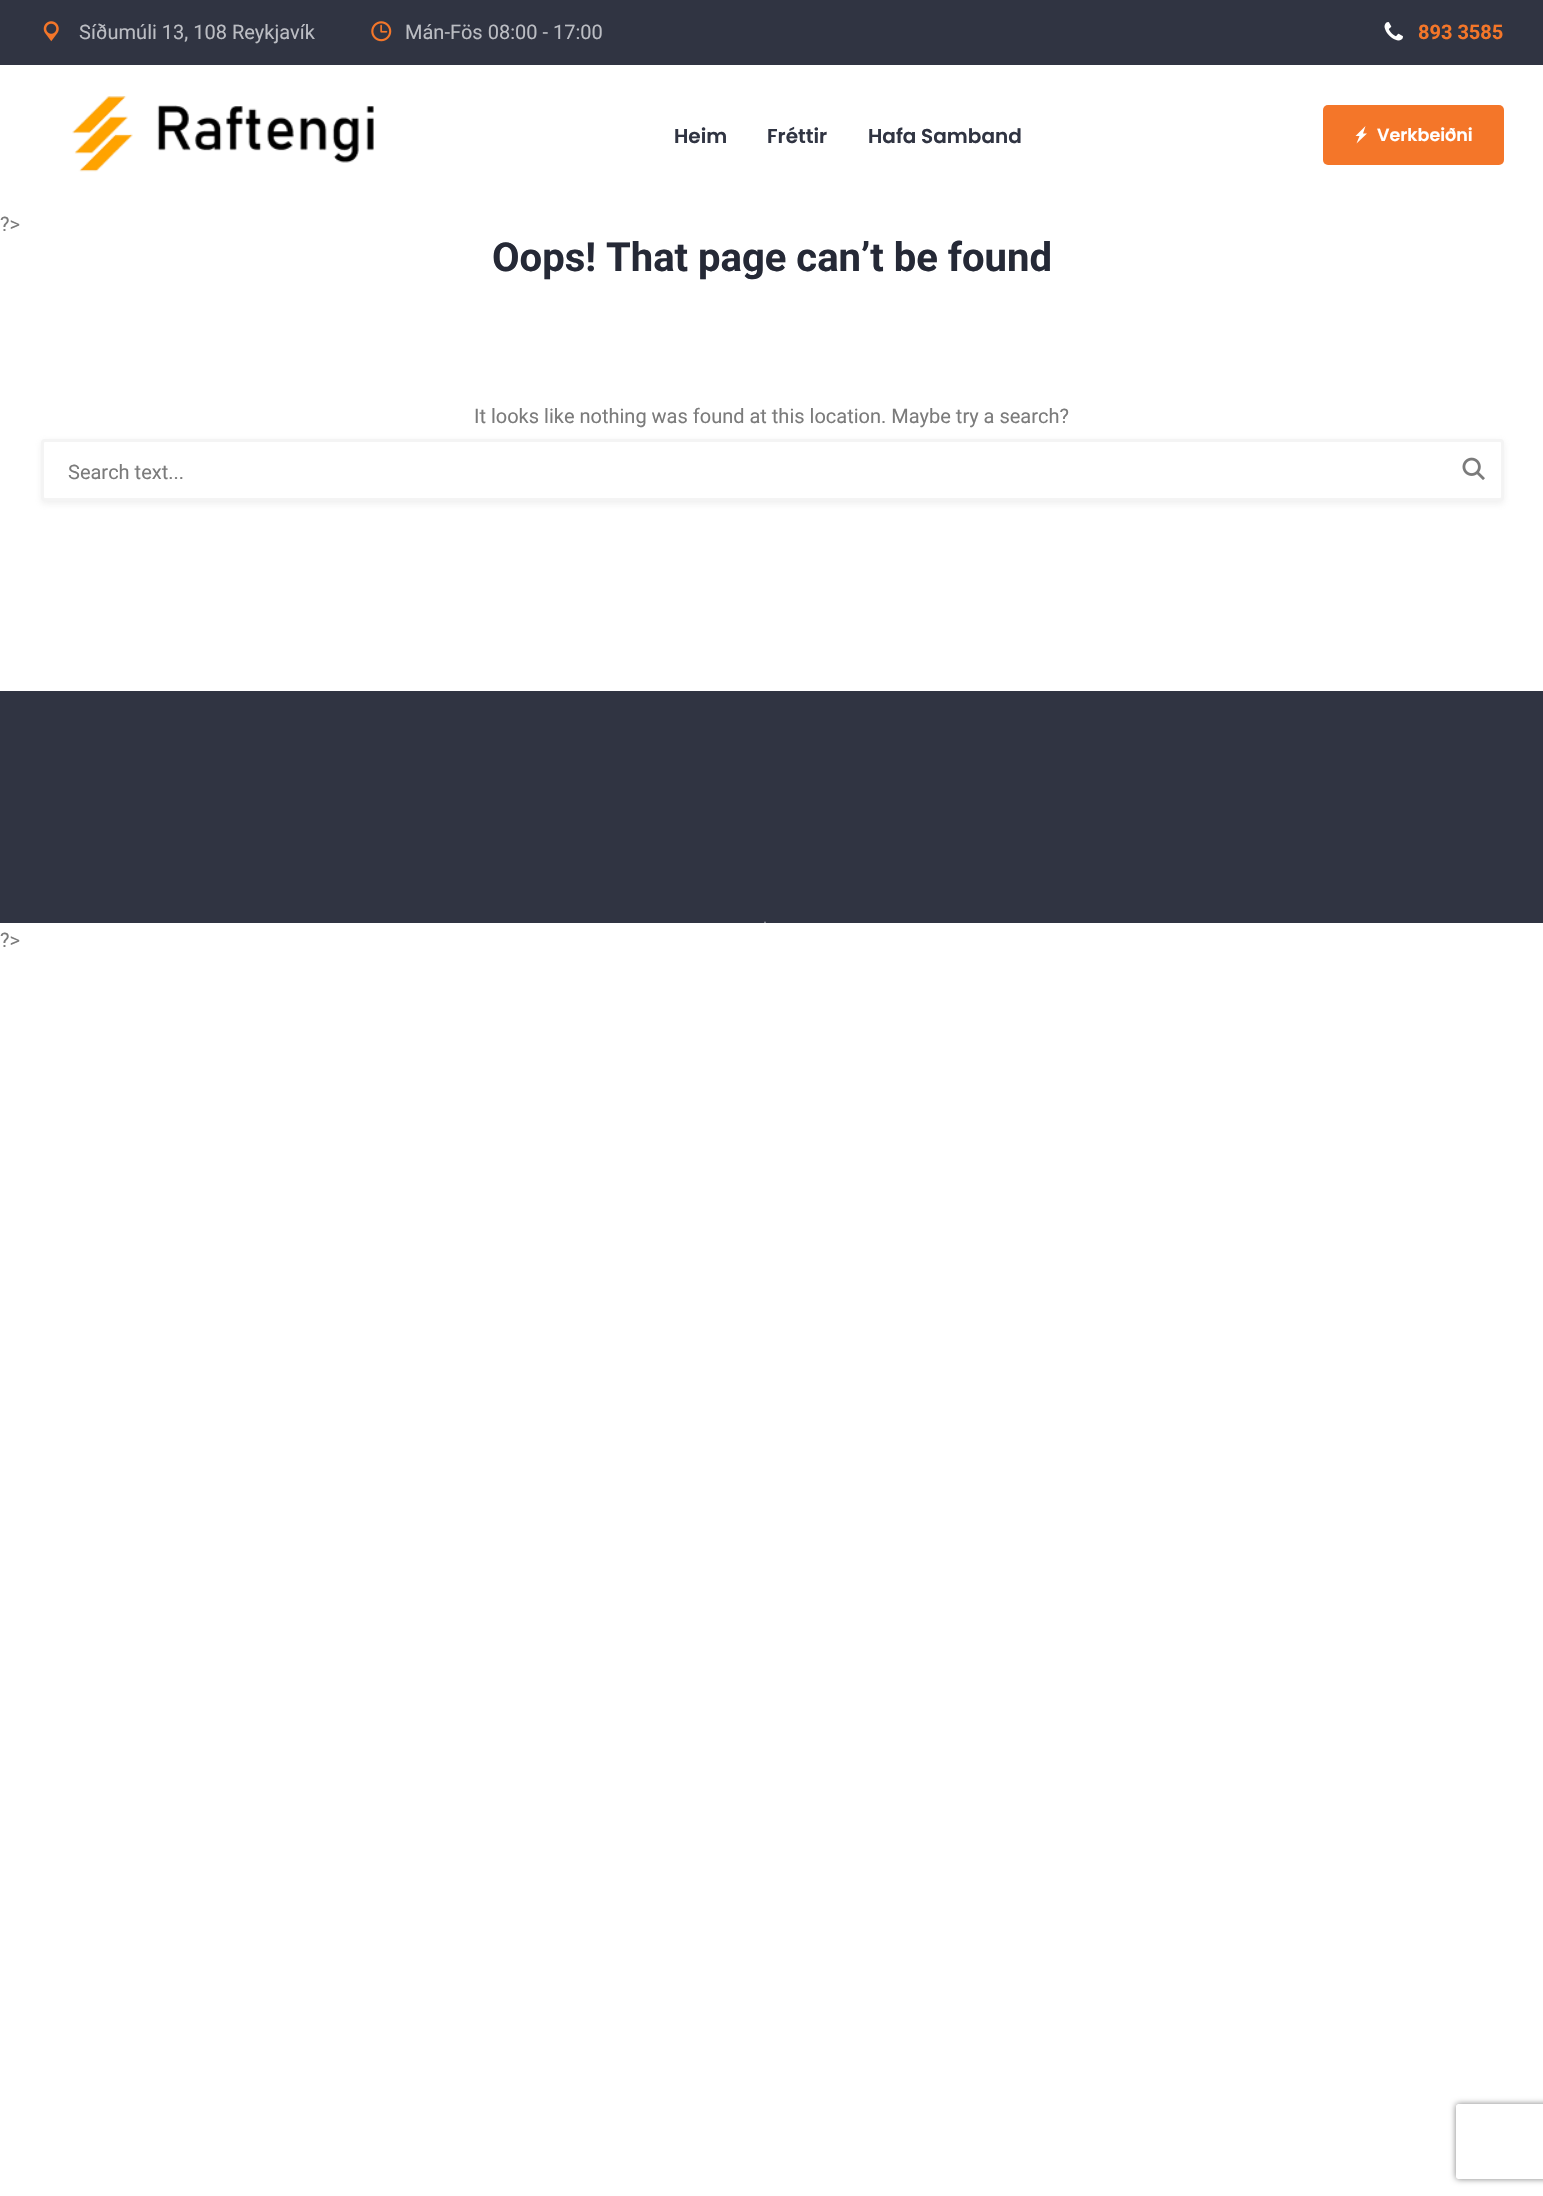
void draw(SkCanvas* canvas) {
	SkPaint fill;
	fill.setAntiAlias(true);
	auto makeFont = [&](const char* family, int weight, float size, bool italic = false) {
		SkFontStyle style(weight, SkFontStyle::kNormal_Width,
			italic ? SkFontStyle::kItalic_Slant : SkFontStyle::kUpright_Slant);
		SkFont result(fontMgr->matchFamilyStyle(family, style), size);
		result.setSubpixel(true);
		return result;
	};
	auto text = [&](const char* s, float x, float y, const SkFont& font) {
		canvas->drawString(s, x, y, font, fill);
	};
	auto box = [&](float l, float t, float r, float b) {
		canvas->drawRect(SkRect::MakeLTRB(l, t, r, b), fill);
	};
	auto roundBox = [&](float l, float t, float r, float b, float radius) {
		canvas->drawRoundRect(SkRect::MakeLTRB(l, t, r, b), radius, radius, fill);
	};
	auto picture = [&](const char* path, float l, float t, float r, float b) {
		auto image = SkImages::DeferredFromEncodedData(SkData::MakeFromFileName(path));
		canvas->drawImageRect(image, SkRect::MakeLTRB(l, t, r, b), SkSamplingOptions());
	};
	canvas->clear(0xFFFFFFFF);
	fill.setColor(0xFF303442);
	box(0, 0, 1543, 65);
	picture("image0.png", 43, 21, 59, 42);
	picture("image1.png", 371, 21, 392, 42);
	picture("image2.png", 1384, 22, 1403, 41);
	picture("image3.png", 72, 96, 374, 172);
	fill.setColor(0xFFF47629);
	roundBox(1323, 105, 1504, 165, 5);
	fill.setColor(0xFFFFFFFF);
	canvas->drawPath(SkPathBuilder().moveTo(1365.5f, 126).lineTo(1355.5f, 136).lineTo(1359.5f, 136).lineTo(1356.5f, 143.5f).lineTo(1367, 133.5f).lineTo(1363, 133.5f).close().detach(), fill);
	fill.setColor(0x2EABABAB);
	fill.setMaskFilter(SkMaskFilter::MakeBlur(kNormal_SkBlurStyle, 3));
	canvas->drawRoundRect(SkRect::MakeLTRB(41, 441, 1504, 504), 4, 4, fill);
	fill.setMaskFilter(nullptr);
	fill.setColor(0xFFFFFFFF);
	canvas->drawRoundRect(SkRect::MakeLTRB(42.5f, 440.5f, 1502.5f, 499.5f), 2.5f, 2.5f, fill);
	fill.setStyle(SkPaint::kStroke_Style);
	fill.setStrokeWidth(3);
	fill.setColor(0xFFF4F4F4);
	canvas->drawRoundRect(SkRect::MakeLTRB(42.5f, 440.5f, 1502.5f, 499.5f), 2.5f, 2.5f, fill);
	picture("image4.png", 1462, 457, 1485, 480);
	fill.setStyle(SkPaint::kFill_Style);
	fill.setColor(0xFF303442);
	box(0, 691, 1543, 923);
	fill.setColor(0xFFFFFFFF);
	canvas->drawPath(SkPathBuilder().moveTo(784, 990).lineTo(746, 990).lineTo(765, 921).close().detach(), fill);
	canvas->save();
	canvas->clipPath(SkPathBuilder(SkPathFillType::kEvenOdd).moveTo(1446, 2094).lineTo(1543, 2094).lineTo(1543, 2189).lineTo(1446, 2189).close().moveTo(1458.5f, 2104).lineTo(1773.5f, 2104).cubicTo(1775, 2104, 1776, 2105, 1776, 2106.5f).lineTo(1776, 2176.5f).cubicTo(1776, 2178, 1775, 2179, 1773.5f, 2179).lineTo(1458.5f, 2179).cubicTo(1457, 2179, 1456, 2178, 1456, 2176.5f).lineTo(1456, 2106.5f).cubicTo(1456, 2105, 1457, 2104, 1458.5f, 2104).close().detach(), true);
	fill.setColor(0xFF808080);
	fill.setMaskFilter(SkMaskFilter::MakeBlur(kNormal_SkBlurStyle, 3));
	canvas->drawRoundRect(SkRect::MakeLTRB(1456, 2104, 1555, 2179), 2.5f, 2.5f, fill);
	fill.setMaskFilter(nullptr);
	canvas->restore();
	auto font1 = makeFont("Roboto", 400, 20);
	fill.setColor(0xFFBBBDC3);
	text("Síðumúli 13, 108 Reykjavík", 79, 39, font1);
	text("Mán-Fös 08:00 - 17:00", 405, 39, font1);
	auto font2 = makeFont("Roboto", 700, 20);
	fill.setColor(0xFFF47629);
	text("893 3585", 1418, 39, font2);
	auto font3 = makeFont("Poppins", 600, 20);
	fill.setColor(0xFF303442);
	text("Heim", 674, 143, font3);
	text("Fréttir", 767, 143, font3);
	text("Hafa Samband", 868, 143, font3);
	auto font4 = makeFont("Poppins", 600, 17.5f);
	fill.setColor(0xFFFFFFFF);
	text("Verkbeiðni", 1377, 141, font4);
	fill.setColor(0xFF7B7B7B);
	text("?>", 0, 231, font1);
	auto font5 = makeFont("Roboto", 700, 40);
	fill.setColor(0xFF252936);
	text("Oops! That page can’t be found", 492, 271, font5);
	fill.setColor(0xFF7B7B7B);
	text("It looks like nothing was found at this location. Maybe try a search?", 474, 423, font1);
	text("Search text...", 68, 479, font1);
	text("?>", 0, 947, font1);
}
